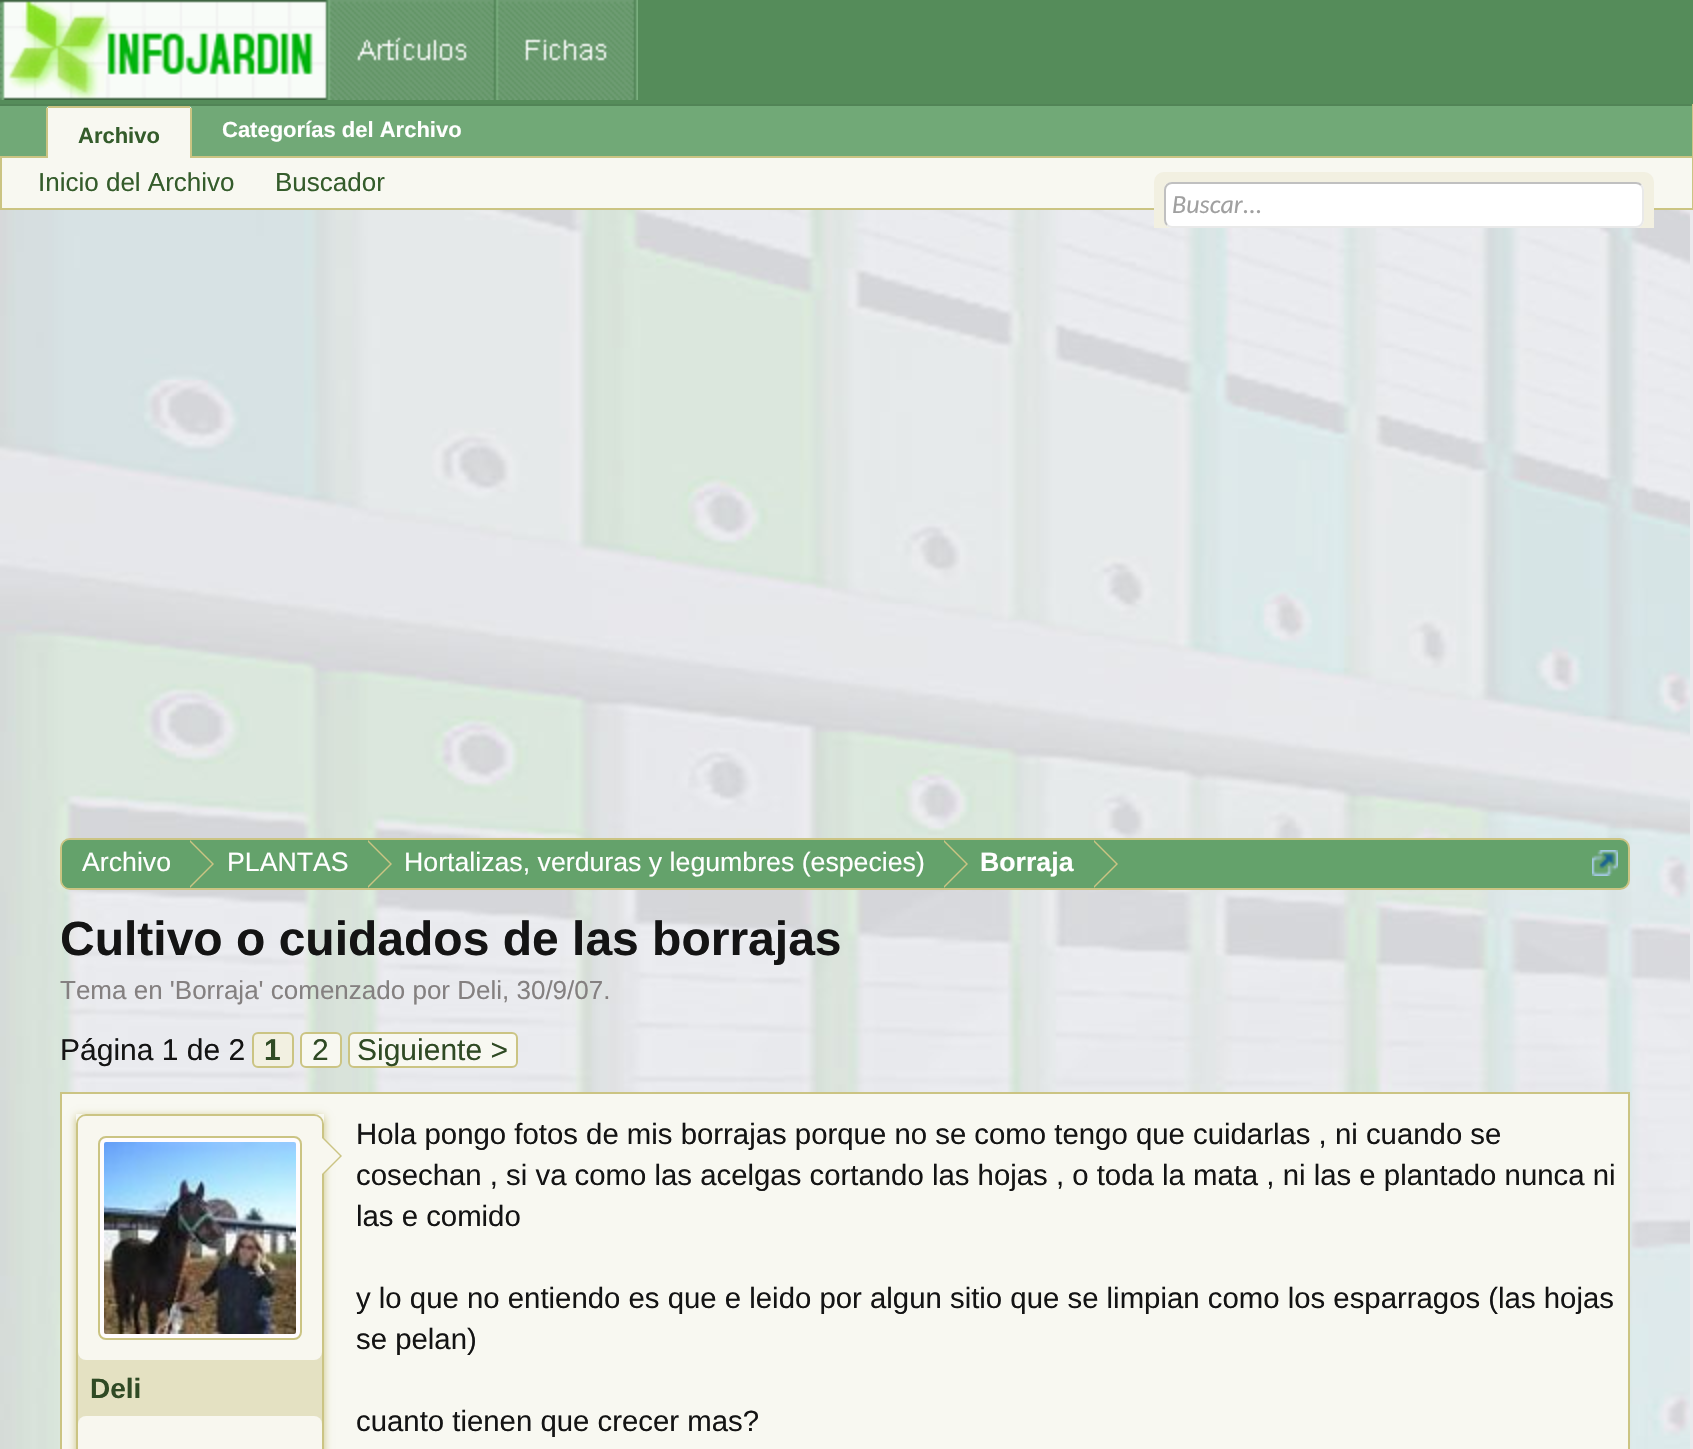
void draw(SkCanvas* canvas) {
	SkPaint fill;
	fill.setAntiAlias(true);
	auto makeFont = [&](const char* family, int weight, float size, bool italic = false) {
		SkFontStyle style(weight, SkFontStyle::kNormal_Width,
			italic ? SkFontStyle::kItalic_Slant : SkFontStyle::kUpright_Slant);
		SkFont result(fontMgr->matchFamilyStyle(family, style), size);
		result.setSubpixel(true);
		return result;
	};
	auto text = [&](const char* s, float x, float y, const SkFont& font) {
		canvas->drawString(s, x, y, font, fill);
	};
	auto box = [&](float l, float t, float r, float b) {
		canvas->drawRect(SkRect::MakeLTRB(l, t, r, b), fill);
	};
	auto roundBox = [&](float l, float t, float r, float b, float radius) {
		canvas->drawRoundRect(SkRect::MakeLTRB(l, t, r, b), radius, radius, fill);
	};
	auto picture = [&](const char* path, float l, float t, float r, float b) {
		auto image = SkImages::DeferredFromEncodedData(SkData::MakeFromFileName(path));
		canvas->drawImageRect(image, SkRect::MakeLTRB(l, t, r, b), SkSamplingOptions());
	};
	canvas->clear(0xFFE9EAED);
	fill.setColor(0xFF558C5A);
	box(0, 0, 1693, 104);
	picture("image0.png", 0, 0, 638, 100);
	fill.setColor(0xFF71A977);
	box(0, 106, 1692, 156);
	fill.setColor(0xFF518456);
	box(0, 104, 1693, 106);
	fill.setColor(0xFFCBC483);
	box(1692, 104, 1693, 210);
	box(0, 156, 1693, 158);
	fill.setColor(0xFFF8F8F1);
	canvas->drawPath(SkPathBuilder().moveTo(50, 106).lineTo(188, 106).cubicTo(190, 106, 192, 108, 192, 110).lineTo(192, 162).lineTo(46, 162).lineTo(46, 110).cubicTo(46, 108, 48, 106, 50, 106).close().detach(), fill);
	fill.setColor(0xFFCBC483);
	box(48, 106, 190, 108);
	box(190, 108, 192, 162);
	box(46, 108, 48, 162);
	fill.setColor(0xFFF8F8F1);
	box(2, 158, 1692, 208);
	fill.setColor(0xFFCBC483);
	box(0, 208, 1693, 210);
	box(0, 158, 2, 210);
	picture("image1.png", 0, 210, 1690, 1449);
	fill.setColor(0xFFF2F0E1);
	roundBox(1154, 172, 1654, 228, 10);
	box(1154, 219, 1654, 228);
	fill.setColor(0xFFFFFFFF);
	roundBox(1164, 182, 1644, 228, 8);
	fill.setStyle(SkPaint::kStroke_Style);
	fill.setStrokeWidth(2);
	fill.setColor(0xFFE9E9E9);
	canvas->drawPath(SkPathBuilder().moveTo(1641, 185).cubicTo(1642.5f, 186.5f, 1643, 188, 1643, 190).lineTo(1643, 220).cubicTo(1643, 222, 1642.5f, 223.5f, 1641, 225).cubicTo(1639.5f, 226.5f, 1638, 227, 1636, 227).lineTo(1172, 227).cubicTo(1170, 227, 1168.5f, 226.5f, 1167, 225).detach(), fill);
	fill.setColor(0xFFC0C0C0);
	canvas->drawPath(SkPathBuilder().moveTo(1167, 225).cubicTo(1165.5f, 223.5f, 1165, 222, 1165, 220).lineTo(1165, 190).cubicTo(1165, 188, 1165.5f, 186.5f, 1167, 185).cubicTo(1168.5f, 183.5f, 1170, 183, 1172, 183).lineTo(1636, 183).cubicTo(1638, 183, 1639.5f, 183.5f, 1641, 185).detach(), fill);
	fill.setStyle(SkPaint::kFill_Style);
	fill.setColor(0xFF64A26B);
	canvas->drawRoundRect(SkRect::MakeLTRB(61, 839, 1629, 889), 9, 9, fill);
	fill.setStyle(SkPaint::kStroke_Style);
	fill.setColor(0xFFCBC483);
	canvas->drawRoundRect(SkRect::MakeLTRB(61, 839, 1629, 889), 9, 9, fill);
	canvas->save();
	canvas->clipPath(SkPathBuilder().moveTo(70, 840).lineTo(1620, 840).cubicTo(1624.5f, 840, 1628, 843.5f, 1628, 848).lineTo(1628, 880).cubicTo(1628, 884.5f, 1624.5f, 888, 1620, 888).lineTo(70, 888).cubicTo(65.5f, 888, 62, 884.5f, 62, 880).lineTo(62, 848).cubicTo(62, 843.5f, 65.5f, 840, 70, 840).close().detach(), true);
	fill.setStyle(SkPaint::kFill_Style);
	fill.setColor(0xFF64A26B);
	canvas->drawPath(SkPathBuilder().moveTo(70, 840).lineTo(190, 840).lineTo(190, 890).lineTo(70, 890).cubicTo(65.5f, 890, 62, 886.5f, 62, 882).lineTo(62, 848).cubicTo(62, 843.5f, 65.5f, 840, 70, 840).close().detach(), fill);
	canvas->restore();
	fill.setColor(0xFFCBC483);
	canvas->drawPath(SkPathBuilder().moveTo(190, 888).lineTo(190, 840).lineTo(214, 864).close().detach(), fill);
	fill.setColor(0xFF64A26B);
	canvas->drawPath(SkPathBuilder().moveTo(188, 888).lineTo(188, 840).lineTo(212, 864).close().detach(), fill);
	fill.setColor(0xFFCBC483);
	canvas->drawPath(SkPathBuilder().moveTo(368, 888).lineTo(368, 840).lineTo(392, 864).close().detach(), fill);
	fill.setColor(0xFF64A26B);
	canvas->drawPath(SkPathBuilder().moveTo(366, 888).lineTo(366, 840).lineTo(390, 864).close().detach(), fill);
	fill.setColor(0xFFCBC483);
	canvas->drawPath(SkPathBuilder().moveTo(944, 888).lineTo(944, 840).lineTo(968, 864).close().detach(), fill);
	fill.setColor(0xFF64A26B);
	canvas->drawPath(SkPathBuilder().moveTo(942, 888).lineTo(942, 840).lineTo(966, 864).close().detach(), fill);
	fill.setColor(0xFFCBC483);
	canvas->drawPath(SkPathBuilder().moveTo(1094, 888).lineTo(1094, 840).lineTo(1118, 864).close().detach(), fill);
	fill.setColor(0xFF64A26B);
	canvas->drawPath(SkPathBuilder().moveTo(1092, 888).lineTo(1092, 840).lineTo(1116, 864).close().detach(), fill);
	picture("image2.png", 1592, 850, 1618, 876);
	fill.setColor(0xFFF2F0E1);
	canvas->drawRoundRect(SkRect::MakeLTRB(253, 1033, 293, 1067), 5, 5, fill);
	fill.setStyle(SkPaint::kStroke_Style);
	fill.setColor(0xFFCBC483);
	canvas->drawRoundRect(SkRect::MakeLTRB(253, 1033, 293, 1067), 5, 5, fill);
	fill.setStyle(SkPaint::kFill_Style);
	fill.setColor(0xFFF8F8F1);
	canvas->drawRoundRect(SkRect::MakeLTRB(301, 1033, 341, 1067), 5, 5, fill);
	fill.setStyle(SkPaint::kStroke_Style);
	fill.setColor(0xFFCBC483);
	canvas->drawRoundRect(SkRect::MakeLTRB(301, 1033, 341, 1067), 5, 5, fill);
	fill.setStyle(SkPaint::kFill_Style);
	fill.setColor(0xFFF8F8F1);
	canvas->drawRoundRect(SkRect::MakeLTRB(349, 1033, 517, 1067), 5, 5, fill);
	fill.setStyle(SkPaint::kStroke_Style);
	fill.setColor(0xFFCBC483);
	canvas->drawRoundRect(SkRect::MakeLTRB(349, 1033, 517, 1067), 5, 5, fill);
	fill.setStyle(SkPaint::kFill_Style);
	fill.setColor(0xFFF8F8F1);
	box(62, 1094, 1628, 1449);
	fill.setColor(0xFFCBC483);
	box(60, 1092, 1630, 1094);
	box(1628, 1092, 1630, 1449);
	box(60, 1092, 62, 1449);
	canvas->save();
	canvas->clipPath(SkPathBuilder(SkPathFillType::kEvenOdd).moveTo(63, 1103).lineTo(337, 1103).lineTo(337, 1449).lineTo(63, 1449).close().moveTo(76, 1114).lineTo(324, 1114).lineTo(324, 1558).lineTo(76, 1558).close().detach(), true);
	fill.setMaskFilter(SkMaskFilter::MakeBlur(kNormal_SkBlurStyle, 4));
	canvas->drawRect(SkRect::MakeLTRB(76, 1116, 324, 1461), fill);
	fill.setMaskFilter(nullptr);
	canvas->restore();
	fill.setColor(0xFFE4E1C2);
	canvas->drawRoundRect(SkRect::MakeLTRB(77, 1115, 323, 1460), 9, 9, fill);
	fill.setStyle(SkPaint::kStroke_Style);
	fill.setColor(0xFFCBC483);
	canvas->drawRoundRect(SkRect::MakeLTRB(77, 1115, 323, 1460), 9, 9, fill);
	fill.setStyle(SkPaint::kFill_Style);
	fill.setColor(0xFFF8F7EF);
	roundBox(78, 1116, 322, 1360, 8);
	fill.setColor(0xFFFFFCFE);
	canvas->drawRoundRect(SkRect::MakeLTRB(99, 1137, 301, 1339), 7, 7, fill);
	fill.setStyle(SkPaint::kStroke_Style);
	fill.setColor(0xFFCBC483);
	canvas->drawRoundRect(SkRect::MakeLTRB(99, 1137, 301, 1339), 7, 7, fill);
	picture("image3.png", 104, 1142, 296, 1334);
	fill.setStyle(SkPaint::kFill_Style);
	canvas->drawPath(SkPathBuilder().moveTo(322, 1176).lineTo(322, 1136).lineTo(342, 1156).close().detach(), fill);
	fill.setColor(0xFFF8F7EF);
	canvas->drawPath(SkPathBuilder().moveTo(320, 1176).lineTo(320, 1136).lineTo(340, 1156).close().detach(), fill);
	roundBox(78, 1416, 322, 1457, 8);
	auto font1 = makeFont("Liberation Sans", 700, 22);
	fill.setColor(0xFFFFFFFF);
	text("Categorías del Archivo", 222, 137, font1);
	fill.setColor(0xFF345C2B);
	text("Archivo", 78, 143, font1);
	auto font2 = makeFont("Liberation Sans", 400, 26);
	text("Inicio del Archivo", 38, 191, font2);
	text("Buscador", 275, 191, font2);
	auto font3 = makeFont("Carlito", 400, 26, true);
	fill.setColor(0xFFA0A0A0);
	text("Buscar...", 1172, 213, font3);
	auto font4 = makeFont("Liberation Sans", 400, 26.7f);
	fill.setColor(0xFFFFFFFF);
	text("Archivo", 82, 871, font4);
	text("PLANTAS", 227, 871, font4);
	text("Hortalizas, verduras y legumbres (especies)", 404, 871, font4);
	auto font5 = makeFont("Liberation Sans", 700, 26.7f);
	text("Borraja", 980, 871, font5);
	auto font6 = makeFont("Liberation Sans", 700, 48);
	fill.setColor(0xFF141414);
	text("Cultivo o cuidados de las borrajas", 60, 955, font6);
	fill.setColor(0xFF848080);
	text("Tema en 'Borraja' comenzado por Deli, 30/9/07.", 60, 999, font2);
	auto font7 = makeFont("Liberation Sans", 400, 30);
	fill.setColor(0xFF141414);
	text("Página 1 de 2", 60, 1060, font7);
	auto font8 = makeFont("Liberation Sans", 700, 30);
	fill.setColor(0xFF2F4A24);
	text("1", 264, 1060, font8);
	text("2", 312, 1060, font7);
	text("Siguiente >", 357, 1060, font7);
	auto font9 = makeFont("Liberation Sans", 700, 28);
	text("Deli", 90, 1398, font9);
	auto font10 = makeFont("Liberation Sans", 400, 29.35f);
	fill.setColor(0xFF141414);
	text("Hola pongo fotos de mis borrajas porque no se como tengo que cuidarlas , ni cuando se", 356, 1144, font10);
	text("cosechan , si va como las acelgas cortando las hojas , o toda la mata , ni las e plantado nunca ni", 356, 1185, font10);
	text("las e comido", 356, 1226, font10);
	text("y lo que no entiendo es que e leido por algun sitio que se limpian como los esparragos (las hojas", 356, 1308, font10);
	text("se pelan)", 356, 1349, font10);
	text("cuanto tienen que crecer mas?", 356, 1431, font10);
}
